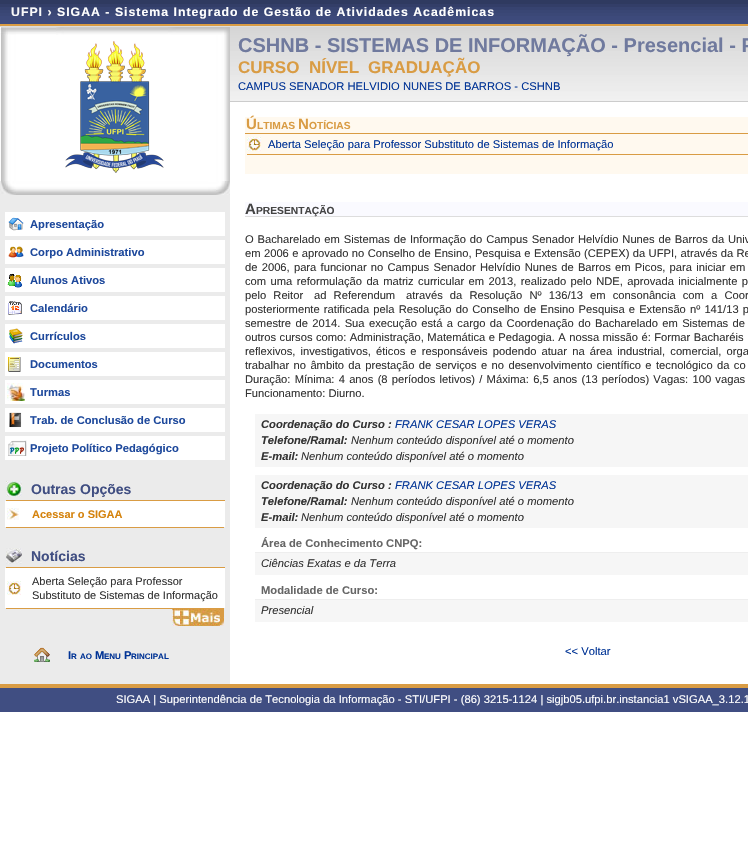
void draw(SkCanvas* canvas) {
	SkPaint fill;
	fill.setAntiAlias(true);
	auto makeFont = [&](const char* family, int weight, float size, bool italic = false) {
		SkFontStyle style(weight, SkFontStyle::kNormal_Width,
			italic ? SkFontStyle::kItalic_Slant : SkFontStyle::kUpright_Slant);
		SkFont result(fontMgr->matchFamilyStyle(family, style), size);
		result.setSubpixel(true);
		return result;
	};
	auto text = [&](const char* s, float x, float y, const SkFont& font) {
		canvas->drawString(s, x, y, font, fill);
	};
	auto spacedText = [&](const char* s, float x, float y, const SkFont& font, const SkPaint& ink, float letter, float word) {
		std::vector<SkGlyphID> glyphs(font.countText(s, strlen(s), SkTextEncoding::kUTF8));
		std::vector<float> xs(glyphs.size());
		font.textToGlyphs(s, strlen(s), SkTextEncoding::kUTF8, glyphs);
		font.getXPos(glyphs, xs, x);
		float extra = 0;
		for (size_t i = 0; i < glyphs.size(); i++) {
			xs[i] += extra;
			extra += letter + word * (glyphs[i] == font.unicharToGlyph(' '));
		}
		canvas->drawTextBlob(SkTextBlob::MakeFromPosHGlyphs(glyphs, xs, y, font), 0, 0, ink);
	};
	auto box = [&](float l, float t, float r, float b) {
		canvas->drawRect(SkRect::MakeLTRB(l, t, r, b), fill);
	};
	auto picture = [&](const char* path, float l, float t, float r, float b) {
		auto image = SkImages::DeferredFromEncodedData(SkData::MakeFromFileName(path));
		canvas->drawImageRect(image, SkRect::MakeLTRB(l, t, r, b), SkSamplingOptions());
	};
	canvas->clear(0xFFFFFFFF);
	fill.setColor(0xFFEBEBEB);
	box(0, 195, 230, 684);
	fill.setColor(0xFFDDDDDD);
	box(0, 26, 748, 27);
	picture("image0.png", 0, 0, 748, 24);
	fill.setColor(0xFFD99C44);
	box(0, 24, 748, 26);
	picture("image1.png", 0, 35, 230, 181);
	picture("image2.png", 0, 181, 230, 195);
	picture("image3.png", 0, 27, 230, 35);
	picture("image4.png", 65, 41, 164, 173);
	fill.setColor(0xFFFFFFFF);
	box(5, 212, 225, 236);
	picture("image5.png", 8, 217, 24, 231);
	box(5, 240, 225, 264);
	picture("image6.png", 8, 246, 24, 258);
	box(5, 268, 225, 292);
	picture("image7.png", 7, 273, 23, 288);
	box(5, 296, 225, 320);
	picture("image8.png", 8, 301, 22, 315);
	box(5, 324, 225, 348);
	picture("image9.png", 9, 328, 23, 344);
	box(5, 352, 225, 376);
	picture("image10.png", 8, 357, 21, 372);
	box(5, 380, 225, 404);
	picture("image11.png", 7, 383, 25, 401);
	box(5, 408, 225, 432);
	picture("image12.png", 9, 412, 22, 428);
	box(5, 436, 225, 460);
	picture("image13.png", 8, 440, 27, 456);
	picture("image14.png", 6, 481, 22, 497);
	fill.setColor(0xFFD99C44);
	box(5, 500, 225, 501);
	fill.setColor(0xFFEBEBEB);
	box(5, 500, 6, 501);
	fill.setColor(0xFFFFFFFF);
	box(5, 501, 225, 527);
	picture("image15.png", 7, 508, 19, 520);
	fill.setColor(0xFFD99C44);
	box(5, 527, 225, 528);
	fill.setColor(0xFFEBEBEB);
	box(224, 527, 225, 529);
	box(5, 527, 6, 529);
	picture("image16.png", 6, 548, 22, 564);
	fill.setColor(0xFFD99C44);
	box(5, 567, 225, 568);
	fill.setColor(0xFFEBEBEB);
	box(5, 567, 6, 568);
	fill.setColor(0xFFFFFFFF);
	box(5, 568, 225, 608);
	picture("image17.png", 7, 581, 21, 595);
	picture("image18.png", 172, 609, 224, 626);
	fill.setColor(0xFFD99C44);
	box(5, 608, 225, 609);
	fill.setColor(0xFFEBEBEB);
	box(224, 608, 225, 609);
	box(5, 608, 6, 609);
	picture("image19.png", 34, 647, 50, 662);
	picture("image20.png", 230, 27, 748, 101);
	fill.setColor(0xFFCCCCCC);
	box(230, 101, 748, 102);
	fill.setColor(0xFFFFF9EF);
	box(245, 117, 748, 133);
	fill.setColor(0xFFD99C44);
	box(245, 133, 748, 134);
	fill.setColor(0xFFFFF9EF);
	box(245, 134, 748, 174);
	picture("image17.png", 247, 137, 261, 151);
	fill.setColor(0xFFD99C44);
	box(247, 154, 748, 155);
	fill.setColor(0xFFFAFAFF);
	box(245, 202, 748, 216);
	fill.setColor(0xFFDDDDDD);
	box(245, 216, 748, 217);
	fill.setColor(0xFFF6F6F6);
	box(255, 414, 748, 467);
	box(255, 475, 748, 528);
	fill.setColor(0xFFEEEEEE);
	box(255, 552, 748, 553);
	fill.setColor(0xFFF6F6F6);
	box(255, 553, 748, 575);
	fill.setColor(0xFFEEEEEE);
	box(255, 599, 748, 600);
	fill.setColor(0xFFF6F6F6);
	box(255, 600, 748, 622);
	fill.setColor(0xFF404E82);
	box(0, 688, 748, 712);
	fill.setColor(0xFFD99C44);
	box(0, 684, 748, 688);
	auto font1 = makeFont("Liberation Sans", 700, 12.3f);
	fill.setColor(0xFFF9F9F9);
	spacedText("UFPI ›", 11, 16, font1, fill, 1, 0);
	fill.setColor(0xFFFFFFFF);
	spacedText("SIGAA - Sistema Integrado de Gestão de Atividades Acadêmicas", 57, 16, font1, fill, 1, 0);
	auto font2 = makeFont("Liberation Sans", 700, 11.2f);
	fill.setColor(0xFF1E499C);
	text("Apresentação", 30, 228, font2);
	text("Corpo Administrativo", 30, 256, font2);
	text("Alunos Ativos", 30, 284, font2);
	text("Calendário", 30, 312, font2);
	text("Currículos", 30, 340, font2);
	text("Documentos", 30, 368, font2);
	text("Turmas", 30, 396, font2);
	text("Trab. de Conclusão de Curso", 30, 424, font2);
	text("Projeto Político Pedagógico", 30, 452, font2);
	auto font3 = makeFont("Liberation Sans", 700, 14);
	fill.setColor(0xFF404E82);
	text("Outras Opções", 31, 494, font3);
	auto font4 = makeFont("Liberation Sans", 700, 11);
	fill.setColor(0xFFD5830D);
	text("Acessar o SIGAA", 32, 518, font4);
	fill.setColor(0xFF404E82);
	text("Notícias", 31, 561, font3);
	auto font5 = makeFont("Liberation Sans", 400, 11);
	fill.setColor(0xFF333333);
	text("Aberta Seleção para Professor", 32, 585, font5);
	text("Substituto de Sistemas de Informação", 32, 599, font5);
	fill.setColor(0xFF003395);
	text("I", 68, 659, font2);
	auto font6 = makeFont("Liberation Sans", 700, 8);
	text("R", 71, 659, font6);
	text("AO", 80, 659, font6);
	text("M", 95, 659, font2);
	text("ENU", 104, 659, font6);
	text("P", 124, 659, font2);
	text("RINCIPAL", 131, 659, font6);
	auto font7 = makeFont("Liberation Sans", 700, 20);
	fill.setColor(0xFF707A9E);
	text("CSHNB - SISTEMAS DE INFORMAÇÃO - Presencial - P", 238, 52, font7);
	auto font8 = makeFont("Liberation Sans", 700, 17);
	fill.setColor(0xFFD99C44);
	text("CURSO", 238, 73, font8);
	text("NÍVEL", 309, 73, font8);
	text("GRADUAÇÃO", 368, 73, font8);
	auto font9 = makeFont("Liberation Sans", 400, 11.2f);
	fill.setColor(0xFF003395);
	text("CAMPUS SENADOR HELVIDIO NUNES DE BARROS - CSHNB", 238, 90, font9);
	auto font10 = makeFont("Liberation Sans", 700, 15);
	fill.setColor(0xFFD99C44);
	text("Ú", 246, 129, font10);
	auto font11 = makeFont("Liberation Sans", 700, 10.25f);
	text("LTIMAS", 257, 129, font11);
	text("N", 298, 129, font10);
	text("OTÍCIAS", 309, 129, font11);
	fill.setColor(0xFF003395);
	text("Aberta Seleção para Professor Substituto de Sistemas de Informação", 268, 148, font9);
	fill.setColor(0xFF444444);
	text("A", 245, 214, font10);
	text("PRESENTAÇÃO", 256, 214, font11);
	fill.setColor(0xFF333333);
	spacedText("O Bacharelado em Sistemas de Informação do Campus Senador Helvídio Nunes de Barros da Univ", 245, 243, font9, fill, 0, 0.75f);
	spacedText("em 2006 e aprovado no Conselho de Ensino, Pesquisa e Extensão (CEPEX) da UFPI, através da Re", 245, 257, font9, fill, 0, 0.25f);
	spacedText("de 2006, para funcionar no Campus Senador Helvídio Nunes de Barros em Picos, para iniciar em", 245, 271, font9, fill, 0, 1.1f);
	spacedText("com uma reformulação da matriz curricular em 2013, realizado pelo NDE, aprovada inicialmente p", 245, 285, font9, fill, 0, 1.25f);
	spacedText("pelo Reitor", 245, 299, font9, fill, 0, 4);
	spacedText("ad Referendum", 314, 299, font9, fill, 0, 4);
	spacedText("através da Resolução Nº 136/13 em consonância com a Coor", 406, 299, font9, fill, 0, 4);
	spacedText("posteriormente ratificada pela Resolução do Conselho de Ensino Pesquisa e Extensão nº 141/13 p", 245, 313, font9, fill, 0, 1);
	spacedText("semestre de 2014. Sua execução está a cargo da Coordenação do Bacharelado em Sistemas de", 245, 327, font9, fill, 0, 1.25f);
	spacedText("outros cursos como: Administração, Matemática e Pedagogia. A nossa missão é: Formar Bacharéis", 245, 341, font9, fill, 0, 0.3f);
	spacedText("reflexivos, investigativos, éticos e responsáveis podendo atuar na área industrial, comercial, orga", 245, 355, font9, fill, 0, 2);
	spacedText("trabalhar no âmbito da prestação de serviços e no desenvolvimento científico e tecnológico da co", 245, 369, font9, fill, 0, 1.25f);
	spacedText("Duração: Mínima: 4 anos (8 períodos letivos) / Máxima: 6,5 anos (13 períodos) Vagas: 100 vagas", 245, 383, font9, fill, 0, 1.1f);
	text("Funcionamento: Diurno.", 245, 397, font9);
	auto font12 = makeFont("Liberation Sans", 700, 11.2f, true);
	text("Coordenação do Curso :", 261, 428, font12);
	auto font13 = makeFont("Liberation Sans", 400, 11.2f, true);
	fill.setColor(0xFF003395);
	text("FRANK CESAR LOPES VERAS", 395, 428, font13);
	fill.setColor(0xFF333333);
	text("Telefone/Ramal:", 261, 444, font12);
	text("Nenhum conteúdo disponível até o momento", 351, 444, font13);
	text("E-mail:", 261, 460, font12);
	text("Nenhum conteúdo disponível até o momento", 301, 460, font13);
	text("Coordenação do Curso :", 261, 489, font12);
	fill.setColor(0xFF003395);
	text("FRANK CESAR LOPES VERAS", 395, 489, font13);
	fill.setColor(0xFF333333);
	text("Telefone/Ramal:", 261, 505, font12);
	text("Nenhum conteúdo disponível até o momento", 351, 505, font13);
	text("E-mail:", 261, 521, font12);
	text("Nenhum conteúdo disponível até o momento", 301, 521, font13);
	fill.setColor(0xFF666666);
	text("Área de Conhecimento CNPQ:", 261, 547, font2);
	fill.setColor(0xFF333333);
	text("Ciências Exatas e da Terra", 261, 567, font13);
	fill.setColor(0xFF666666);
	text("Modalidade de Curso:", 261, 594, font2);
	fill.setColor(0xFF333333);
	text("Presencial", 261, 614, font13);
	fill.setColor(0xFF003395);
	text("<< Voltar", 565, 655, font9);
	fill.setColor(0xFFFFFFFF);
	text("SIGAA | Superintendência de Tecnologia da Informação - STI/UFPI - (86) 3215-1124 | sigjb05.ufpi.br.instancia1 vSIGAA_3.12.1", 116, 703, font9);
}
